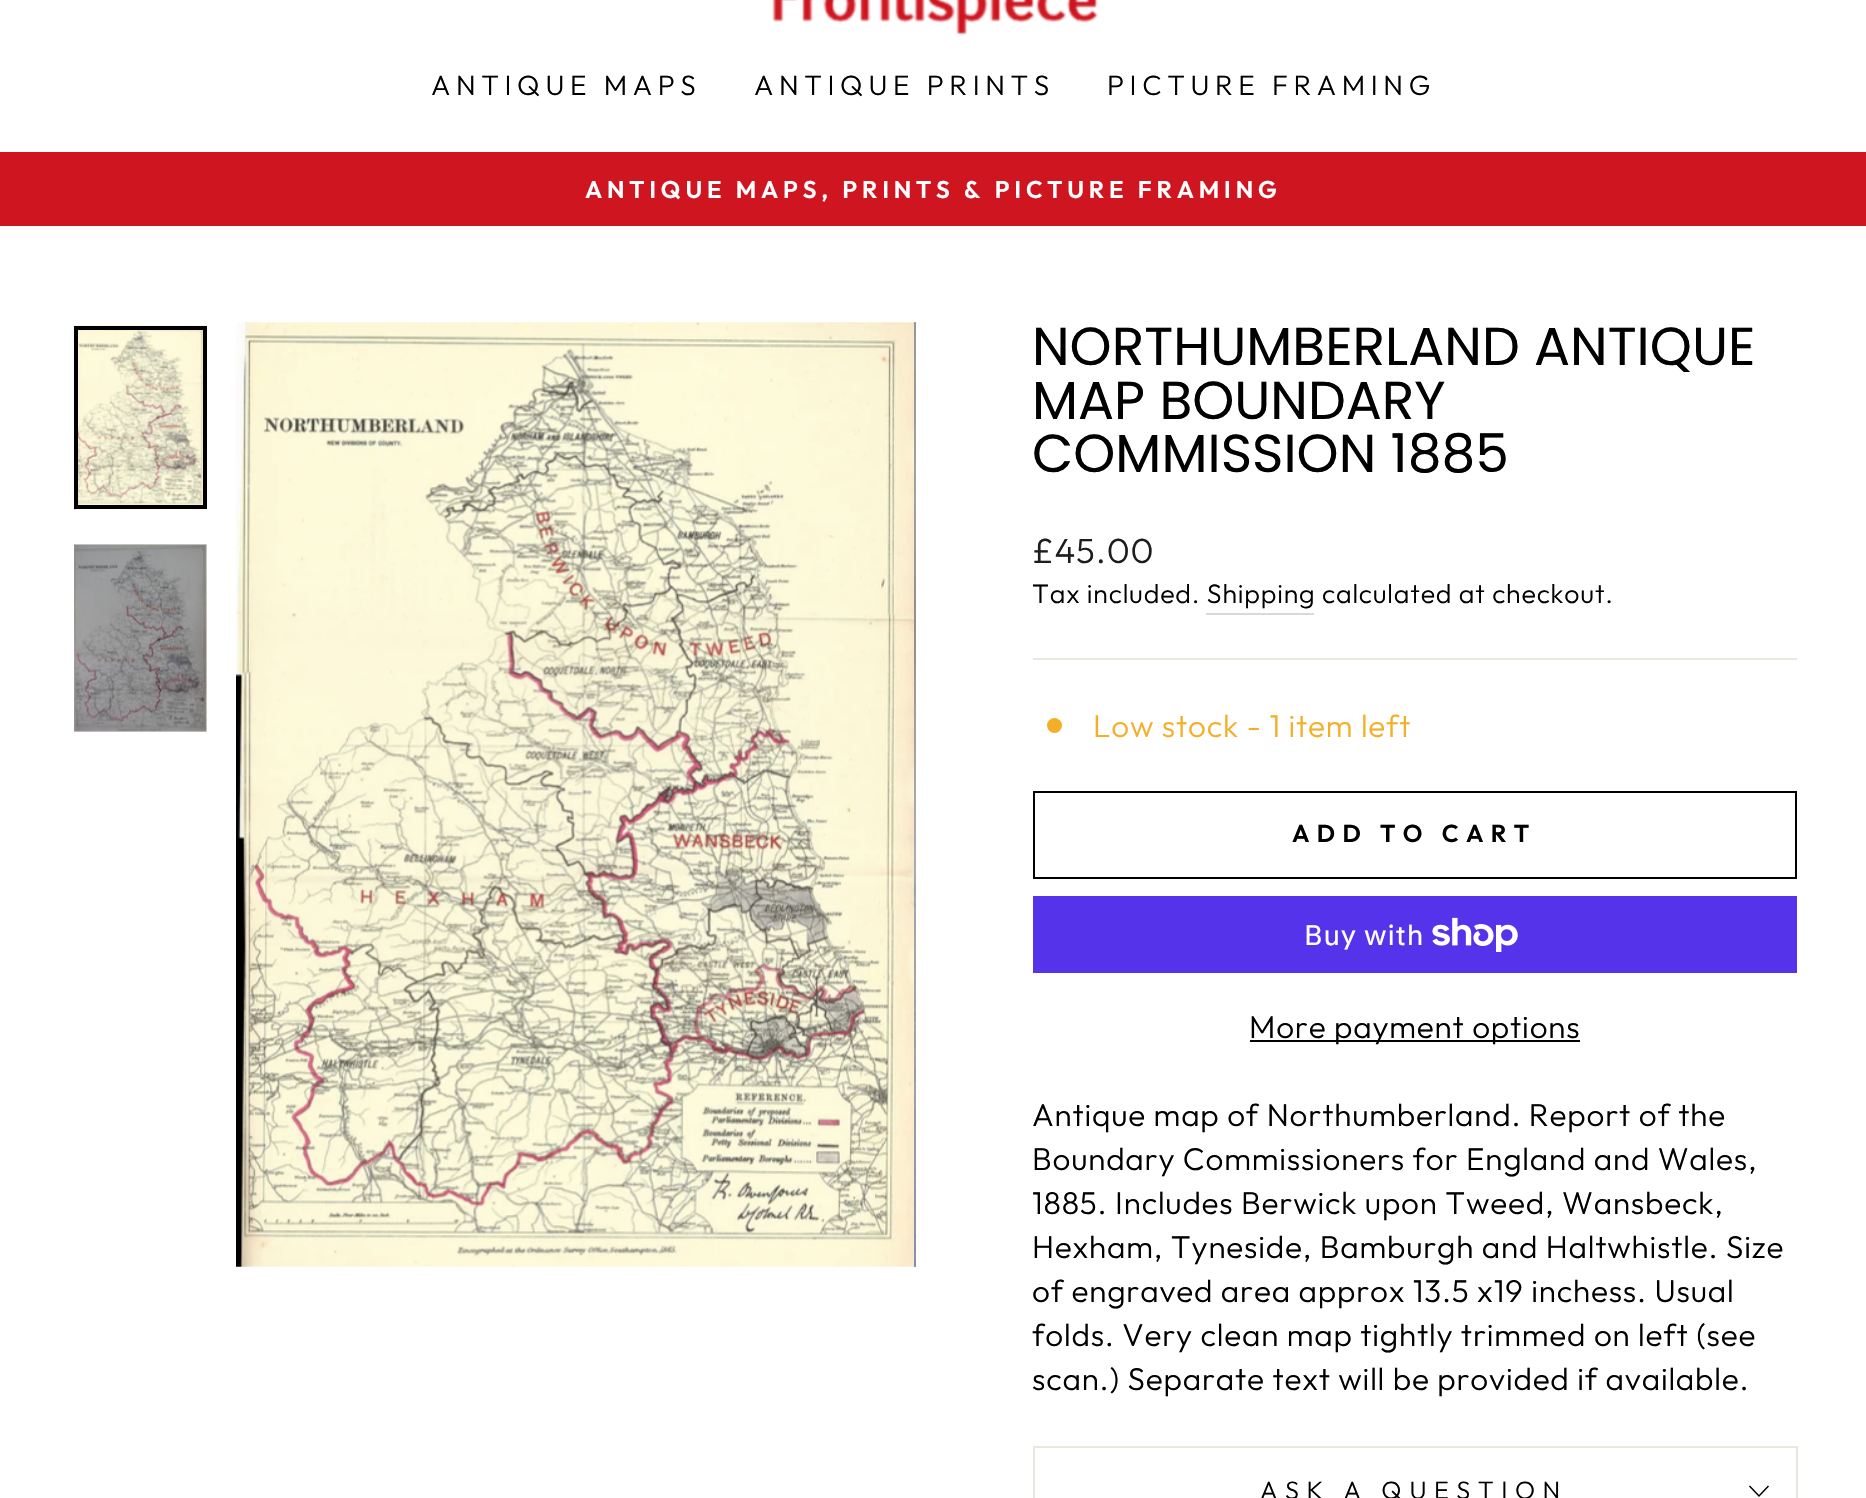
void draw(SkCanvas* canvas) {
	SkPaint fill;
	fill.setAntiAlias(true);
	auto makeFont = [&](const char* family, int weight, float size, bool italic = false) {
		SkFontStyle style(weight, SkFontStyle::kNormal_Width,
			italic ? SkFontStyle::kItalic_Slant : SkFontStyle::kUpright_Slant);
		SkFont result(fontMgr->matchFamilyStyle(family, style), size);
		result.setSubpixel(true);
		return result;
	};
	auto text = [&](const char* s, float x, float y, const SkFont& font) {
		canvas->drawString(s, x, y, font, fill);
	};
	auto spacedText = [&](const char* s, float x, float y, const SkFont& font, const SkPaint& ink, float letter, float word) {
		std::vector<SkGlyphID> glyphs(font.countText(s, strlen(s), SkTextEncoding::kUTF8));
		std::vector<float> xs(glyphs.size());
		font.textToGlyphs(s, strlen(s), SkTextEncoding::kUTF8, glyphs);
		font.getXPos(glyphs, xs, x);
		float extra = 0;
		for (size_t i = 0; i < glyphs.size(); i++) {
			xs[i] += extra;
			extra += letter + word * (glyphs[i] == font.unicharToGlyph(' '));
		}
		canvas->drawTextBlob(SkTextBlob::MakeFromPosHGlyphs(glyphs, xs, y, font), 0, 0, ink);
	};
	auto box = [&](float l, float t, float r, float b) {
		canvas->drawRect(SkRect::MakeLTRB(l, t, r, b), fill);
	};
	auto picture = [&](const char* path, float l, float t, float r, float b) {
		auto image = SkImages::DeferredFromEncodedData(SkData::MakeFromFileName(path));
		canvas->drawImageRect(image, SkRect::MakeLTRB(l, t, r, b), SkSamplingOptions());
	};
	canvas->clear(0xFFFFFFFF);
	picture("image0.png", 772, 0, 1098, 35);
	fill.setColor(0xFFCE1520);
	box(0, 152, 1866, 226);
	picture("image1.png", 74, 325, 207, 510);
	fill.setStyle(SkPaint::kStroke_Style);
	fill.setStrokeWidth(4);
	fill.setColor(0xFF000000);
	canvas->drawRect(SkRect::MakeLTRB(76, 328, 205, 507), fill);
	picture("image2.png", 74, 544, 207, 732);
	picture("image3.png", 236, 322, 916, 1267);
	picture("image4.png", 914, 322, 916, 1267);
	fill.setStyle(SkPaint::kFill_Style);
	fill.setColor(0xFFD9D9D9);
	box(1206, 613, 1314, 615);
	fill.setColor(0xFFE8E8E1);
	box(1033, 658, 1797, 660);
	fill.setColor(0xFFF4AF29);
	canvas->drawCircle(1054.5f, 725.5f, 7.5f, fill);
	fill.setStyle(SkPaint::kStroke_Style);
	fill.setStrokeWidth(2);
	fill.setColor(0xFF000000);
	canvas->drawRect(SkRect::MakeLTRB(1034, 792, 1796, 878), fill);
	fill.setStyle(SkPaint::kFill_Style);
	fill.setColor(0xFF5433EB);
	box(1033, 896, 1797, 973);
	picture("image5.png", 1432, 917, 1518, 952);
	fill.setColor(0xFF000000);
	box(1250, 1040, 1580, 1042);
	fill.setColor(0xFFE8E8E1);
	box(1033, 1446, 1797, 1448);
	box(1796, 1446, 1798, 1498);
	box(1033, 1446, 1035, 1498);
	fill.setStyle(SkPaint::kStroke_Style);
	fill.setStrokeWidth(1.5f);
	fill.setColor(0xFF000000);
	canvas->drawPath(SkPathBuilder().moveTo(1749.5f, 1486).lineTo(1759, 1496).lineTo(1768.5f, 1486).detach(), fill);
	auto font1 = makeFont("Outfit", 300, 28);
	fill.setStyle(SkPaint::kFill_Style);
	spacedText("ANTIQUE MAPS", 431, 95, font1, fill, 5.6f, 0);
	spacedText("ANTIQUE PRINTS", 754, 95, font1, fill, 5.6f, 0);
	spacedText("PICTURE FRAMING", 1107, 95, font1, fill, 5.6f, 0);
	auto font2 = makeFont("Outfit", 600, 24.1f);
	fill.setColor(0xFFFFFFFF);
	spacedText("ANTIQUE MAPS, PRINTS & PICTURE FRAMING", 585, 198, font2, fill, 4.8f, 0);
	auto font3 = makeFont("Poppins", 400, 53.5f);
	fill.setColor(0xFF000000);
	text("NORTHUMBERLAND ANTIQUE", 1032, 365, font3);
	text("MAP BOUNDARY", 1032, 419, font3);
	text("COMMISSION 1885", 1032, 472, font3);
	auto font4 = makeFont("Outfit", 300, 35);
	fill.setColor(0xFF1C1D1D);
	spacedText("£45.00", 1032, 563, font4, fill, 0.8f, 0);
	auto font5 = makeFont("Outfit", 300, 26.75f);
	fill.setColor(0xFF000000);
	spacedText("Tax included. Shipping", 1032, 603, font5, fill, 0.8f, 0);
	spacedText("calculated at checkout.", 1322, 603, font5, fill, 0.8f, 0);
	auto font6 = makeFont("Outfit", 300, 31.5f);
	fill.setColor(0xFFF4AF29);
	spacedText("Low stock - 1 item left", 1093, 737, font6, fill, 0.8f, 0);
	auto font7 = makeFont("Outfit", 600, 24.5f);
	fill.setColor(0xFF000000);
	spacedText("ADD TO CART", 1292, 842, font7, fill, 7.3f, 0);
	auto font8 = makeFont("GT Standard", 400, 28);
	fill.setColor(0xFFFFFFFF);
	spacedText("Buy with", 1304, 945, font8, fill, 0.8f, 0);
	fill.setColor(0xFF000000);
	spacedText("More payment options", 1249, 1038, font6, fill, 0.8f, 0);
	spacedText("Antique map of Northumberland. Report of the", 1032, 1126, font6, fill, 0.8f, 0);
	spacedText("Boundary Commissioners for England and Wales,", 1032, 1170, font6, fill, 0.8f, 0);
	spacedText("1885. Includes Berwick upon Tweed, Wansbeck,", 1032, 1214, font6, fill, 0.8f, 0);
	spacedText("Hexham, Tyneside, Bamburgh and Haltwhistle. Size", 1032, 1258, font6, fill, 0.8f, 0);
	spacedText("of engraved area approx 13.5 x19 inchess. Usual", 1032, 1302, font6, fill, 0.8f, 0);
	spacedText("folds. Very clean map tightly trimmed on left (see", 1032, 1346, font6, fill, 0.8f, 0);
	spacedText("scan.) Separate text will be provided if available.", 1032, 1390, font6, fill, 0.8f, 0);
	auto font9 = makeFont("Outfit", 300, 25.25f);
	spacedText("ASK A QUESTION", 1260, 1499, font9, fill, 7.5f, 0);
}
